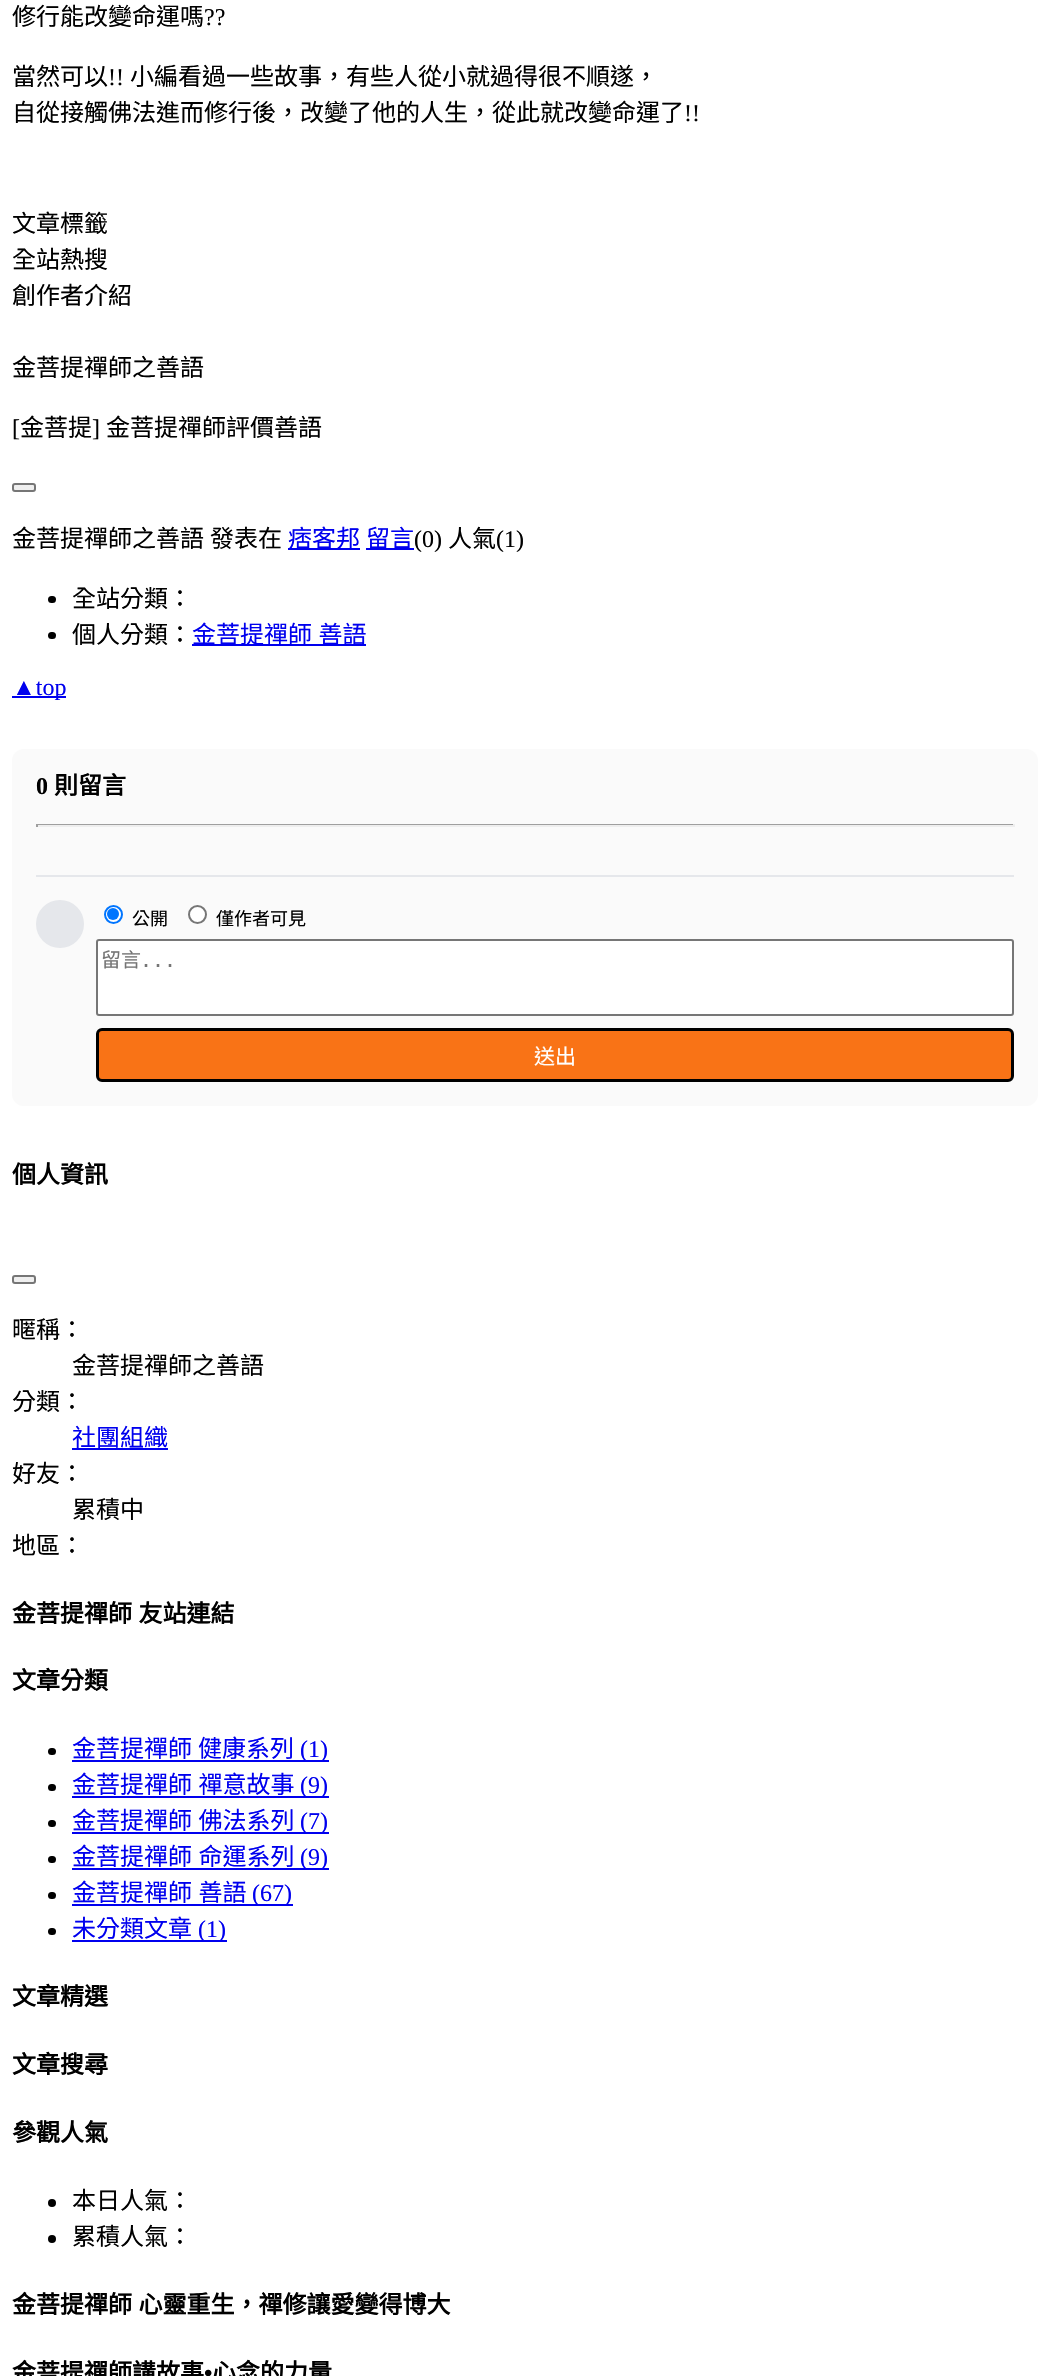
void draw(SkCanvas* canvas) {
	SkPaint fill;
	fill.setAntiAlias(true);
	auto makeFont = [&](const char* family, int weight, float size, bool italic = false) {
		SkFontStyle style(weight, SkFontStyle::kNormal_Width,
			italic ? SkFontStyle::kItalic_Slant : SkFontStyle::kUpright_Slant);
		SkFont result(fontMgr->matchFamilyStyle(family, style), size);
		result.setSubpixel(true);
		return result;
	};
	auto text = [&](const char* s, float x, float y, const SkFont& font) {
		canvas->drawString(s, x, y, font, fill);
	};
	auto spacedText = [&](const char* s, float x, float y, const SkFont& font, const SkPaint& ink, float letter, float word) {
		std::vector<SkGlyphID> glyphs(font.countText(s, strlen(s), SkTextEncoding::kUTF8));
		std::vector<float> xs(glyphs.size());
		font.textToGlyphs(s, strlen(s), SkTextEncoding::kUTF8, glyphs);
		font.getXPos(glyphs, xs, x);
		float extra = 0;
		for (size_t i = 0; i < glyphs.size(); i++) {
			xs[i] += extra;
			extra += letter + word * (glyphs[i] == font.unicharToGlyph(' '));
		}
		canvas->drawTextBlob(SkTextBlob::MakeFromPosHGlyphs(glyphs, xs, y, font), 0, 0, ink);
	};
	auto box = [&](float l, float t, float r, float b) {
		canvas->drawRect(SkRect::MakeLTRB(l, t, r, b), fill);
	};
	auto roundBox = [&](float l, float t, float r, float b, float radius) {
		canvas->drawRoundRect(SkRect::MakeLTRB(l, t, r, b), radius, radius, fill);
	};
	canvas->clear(0xFFFFFFFF);
	fill.setColor(0xFFEFEFEF);
	canvas->drawRoundRect(SkRect::MakeLTRB(13, 484, 35, 491), 2, 2, fill);
	fill.setStyle(SkPaint::kStroke_Style);
	fill.setStrokeWidth(2);
	fill.setColor(0xFF767676);
	canvas->drawRoundRect(SkRect::MakeLTRB(13, 484, 35, 491), 2, 2, fill);
	fill.setStyle(SkPaint::kFill_Style);
	fill.setColor(0xFF0000EE);
	box(288, 548, 360, 550);
	box(366, 548, 414, 550);
	fill.setColor(0xFF000000);
	roundBox(48, 596, 56, 603, 3.5f);
	roundBox(48, 632, 56, 639, 3.5f);
	fill.setColor(0xFF0000EE);
	box(192, 644, 366, 646);
	box(12, 696, 66, 698);
	fill.setColor(0xFFFAFAFA);
	roundBox(12, 749, 1038, 1106, 12);
	fill.setColor(0xFF9F9F9F);
	box(36, 824, 1014, 825);
	fill.setColor(0xFFEEEEEE);
	box(1013, 824, 1015, 827);
	box(36, 825, 1014, 827);
	fill.setColor(0xFF9F9F9F);
	box(36, 824, 38, 827);
	fill.setColor(0xFFE5E7EB);
	box(36, 875, 1014, 877);
	canvas->drawCircle(60, 924, 24, fill);
	fill.setColor(0xFFFFFFFF);
	canvas->drawCircle(113.5f, 914.5f, 8.5f, fill);
	fill.setStyle(SkPaint::kStroke_Style);
	fill.setColor(0xFF0075FF);
	canvas->drawCircle(113.5f, 914.5f, 8.5f, fill);
	fill.setStyle(SkPaint::kFill_Style);
	canvas->drawCircle(113, 914, 6, fill);
	fill.setColor(0xFFFFFFFF);
	canvas->drawCircle(197.5f, 914.5f, 8.5f, fill);
	fill.setStyle(SkPaint::kStroke_Style);
	fill.setColor(0xFF767676);
	canvas->drawCircle(197.5f, 914.5f, 8.5f, fill);
	fill.setStyle(SkPaint::kFill_Style);
	fill.setColor(0xFFFFFFFF);
	canvas->drawRoundRect(SkRect::MakeLTRB(97, 940, 1013, 1015), 2, 2, fill);
	fill.setStyle(SkPaint::kStroke_Style);
	fill.setColor(0xFF767676);
	canvas->drawRoundRect(SkRect::MakeLTRB(97, 940, 1013, 1015), 2, 2, fill);
	fill.setStyle(SkPaint::kFill_Style);
	fill.setColor(0xFFF97316);
	canvas->drawRoundRect(SkRect::MakeLTRB(97.5f, 1029.5f, 1012.5f, 1080.5f), 4.5f, 4.5f, fill);
	fill.setStyle(SkPaint::kStroke_Style);
	fill.setStrokeWidth(3);
	fill.setColor(0xFF000000);
	canvas->drawRoundRect(SkRect::MakeLTRB(97.5f, 1029.5f, 1012.5f, 1080.5f), 4.5f, 4.5f, fill);
	fill.setStyle(SkPaint::kFill_Style);
	fill.setColor(0xFFEFEFEF);
	canvas->drawRoundRect(SkRect::MakeLTRB(13, 1276, 35, 1283), 2, 2, fill);
	fill.setStyle(SkPaint::kStroke_Style);
	fill.setStrokeWidth(2);
	fill.setColor(0xFF767676);
	canvas->drawRoundRect(SkRect::MakeLTRB(13, 1276, 35, 1283), 2, 2, fill);
	fill.setStyle(SkPaint::kFill_Style);
	fill.setColor(0xFF0000EE);
	box(72, 1448, 168, 1450);
	fill.setColor(0xFF000000);
	roundBox(48, 1748, 56, 1755, 3.5f);
	fill.setColor(0xFF0000EE);
	box(72, 1760, 329, 1762);
	fill.setColor(0xFF000000);
	roundBox(48, 1784, 56, 1791, 3.5f);
	fill.setColor(0xFF0000EE);
	box(72, 1796, 329, 1798);
	fill.setColor(0xFF000000);
	roundBox(48, 1820, 56, 1827, 3.5f);
	fill.setColor(0xFF0000EE);
	box(72, 1832, 329, 1834);
	fill.setColor(0xFF000000);
	roundBox(48, 1856, 56, 1863, 3.5f);
	fill.setColor(0xFF0000EE);
	box(72, 1868, 329, 1870);
	fill.setColor(0xFF000000);
	roundBox(48, 1892, 56, 1899, 3.5f);
	fill.setColor(0xFF0000EE);
	box(72, 1904, 293, 1906);
	fill.setColor(0xFF000000);
	roundBox(48, 1928, 56, 1935, 3.5f);
	fill.setColor(0xFF0000EE);
	box(72, 1940, 227, 1942);
	fill.setColor(0xFF000000);
	canvas->drawCircle(52, 2203, 4, fill);
	canvas->drawCircle(52, 2239, 4, fill);
	auto font1 = makeFont("Noto Sans CJK TC", 400, 24);
	text("修行能改變命運嗎", 12, 25, font1);
	auto font2 = makeFont("Liberation Serif", 400, 24);
	text("?\077", 204, 25, font2);
	text("當然可以", 12, 85, font1);
	text("!!", 108, 85, font2);
	text("小編看過一些故事，有些人從小就過得很不順遂，", 130, 85, font1);
	text("自從接觸佛法進而修行後，改變了他的人生，從此就改變命運了", 12, 121, font1);
	text("!!", 684, 121, font2);
	text("文章標籤", 12, 232, font1);
	text("全站熱搜", 12, 268, font1);
	text("創作者介紹", 12, 304, font1);
	text("金菩提禪師之善語", 12, 376, font1);
	text("[", 12, 436, font2);
	text("金菩提", 20, 436, font1);
	text("]", 92, 436, font2);
	text("金菩提禪師評價善語", 106, 436, font1);
	text("金菩提禪師之善語", 12, 547, font1);
	text("發表在", 210, 547, font1);
	fill.setColor(0xFF0000EE);
	text("痞客邦", 288, 547, font1);
	text("留言", 366, 547, font1);
	fill.setColor(0xFF000000);
	text("(0)", 414, 547, font2);
	text("人氣", 448, 547, font1);
	text("(1)", 496, 547, font2);
	text("全站分類：", 72, 607, font1);
	text("個人分類：", 72, 643, font1);
	fill.setColor(0xFF0000EE);
	spacedText("金菩提禪師 善語", 192, 643, font1, fill, 0, 1);
	text("▲top", 12, 695, font2);
	auto font3 = makeFont("Liberation Serif", 700, 24);
	fill.setColor(0xFF000000);
	text("0", 36, 794, font3);
	auto font4 = makeFont("Noto Sans CJK TC", 700, 24);
	text("則留言", 54, 794, font4);
	auto font5 = makeFont("Noto Sans CJK TC", 400, 18);
	text("公開", 132, 925, font5);
	text("僅作者可見", 216, 925, font5);
	auto font6 = makeFont("Noto Sans CJK TC", 400, 20);
	fill.setColor(0xFF757575);
	text("留言", 101, 967, font6);
	auto font7 = makeFont("DejaVu Sans Mono", 400, 20);
	text("...", 140, 967, font7);
	auto font8 = makeFont("Noto Sans CJK TC", 400, 21);
	fill.setColor(0xFFFFFFFF);
	text("送出", 534, 1064, font8);
	fill.setColor(0xFF000000);
	text("個人資訊", 12, 1183, font4);
	text("暱稱：", 12, 1338, font1);
	text("金菩提禪師之善語", 72, 1374, font1);
	text("分類：", 12, 1410, font1);
	fill.setColor(0xFF0000EE);
	text("社團組織", 72, 1446, font1);
	fill.setColor(0xFF000000);
	text("好友：", 12, 1482, font1);
	text("累積中", 72, 1518, font1);
	text("地區：", 12, 1554, font1);
	spacedText("金菩提禪師 友站連結", 12, 1622, font4, fill, 0, 1);
	text("文章分類", 12, 1689, font4);
	fill.setColor(0xFF0000EE);
	text("金菩提禪師", 72, 1757, font1);
	text("健康系列", 198, 1757, font1);
	text("(1)", 300, 1757, font2);
	spacedText("金菩提禪師 禪意故事", 72, 1793, font1, fill, 0, 1);
	text("(9)", 300, 1793, font2);
	spacedText("金菩提禪師 佛法系列", 72, 1829, font1, fill, 0, 1);
	text("(7)", 300, 1829, font2);
	spacedText("金菩提禪師 命運系列", 72, 1865, font1, fill, 0, 1);
	text("(9)", 300, 1865, font2);
	spacedText("金菩提禪師 善語", 72, 1901, font1, fill, 0, 1);
	text("(67)", 252, 1901, font2);
	text("未分類文章", 72, 1937, font1);
	text("(1)", 198, 1937, font2);
	fill.setColor(0xFF000000);
	text("文章精選", 12, 2005, font4);
	text("文章搜尋", 12, 2073, font4);
	text("參觀人氣", 12, 2141, font4);
	text("本日人氣：", 72, 2209, font1);
	text("累積人氣：", 72, 2245, font1);
	spacedText("金菩提禪師 心靈重生，禪修讓愛變得博大", 12, 2313, font4, fill, 0, 1);
	text("金菩提禪師講故事", 12, 2381, font4);
	text("•", 204, 2381, font3);
	text("心念的力量", 212, 2381, font4);
}
